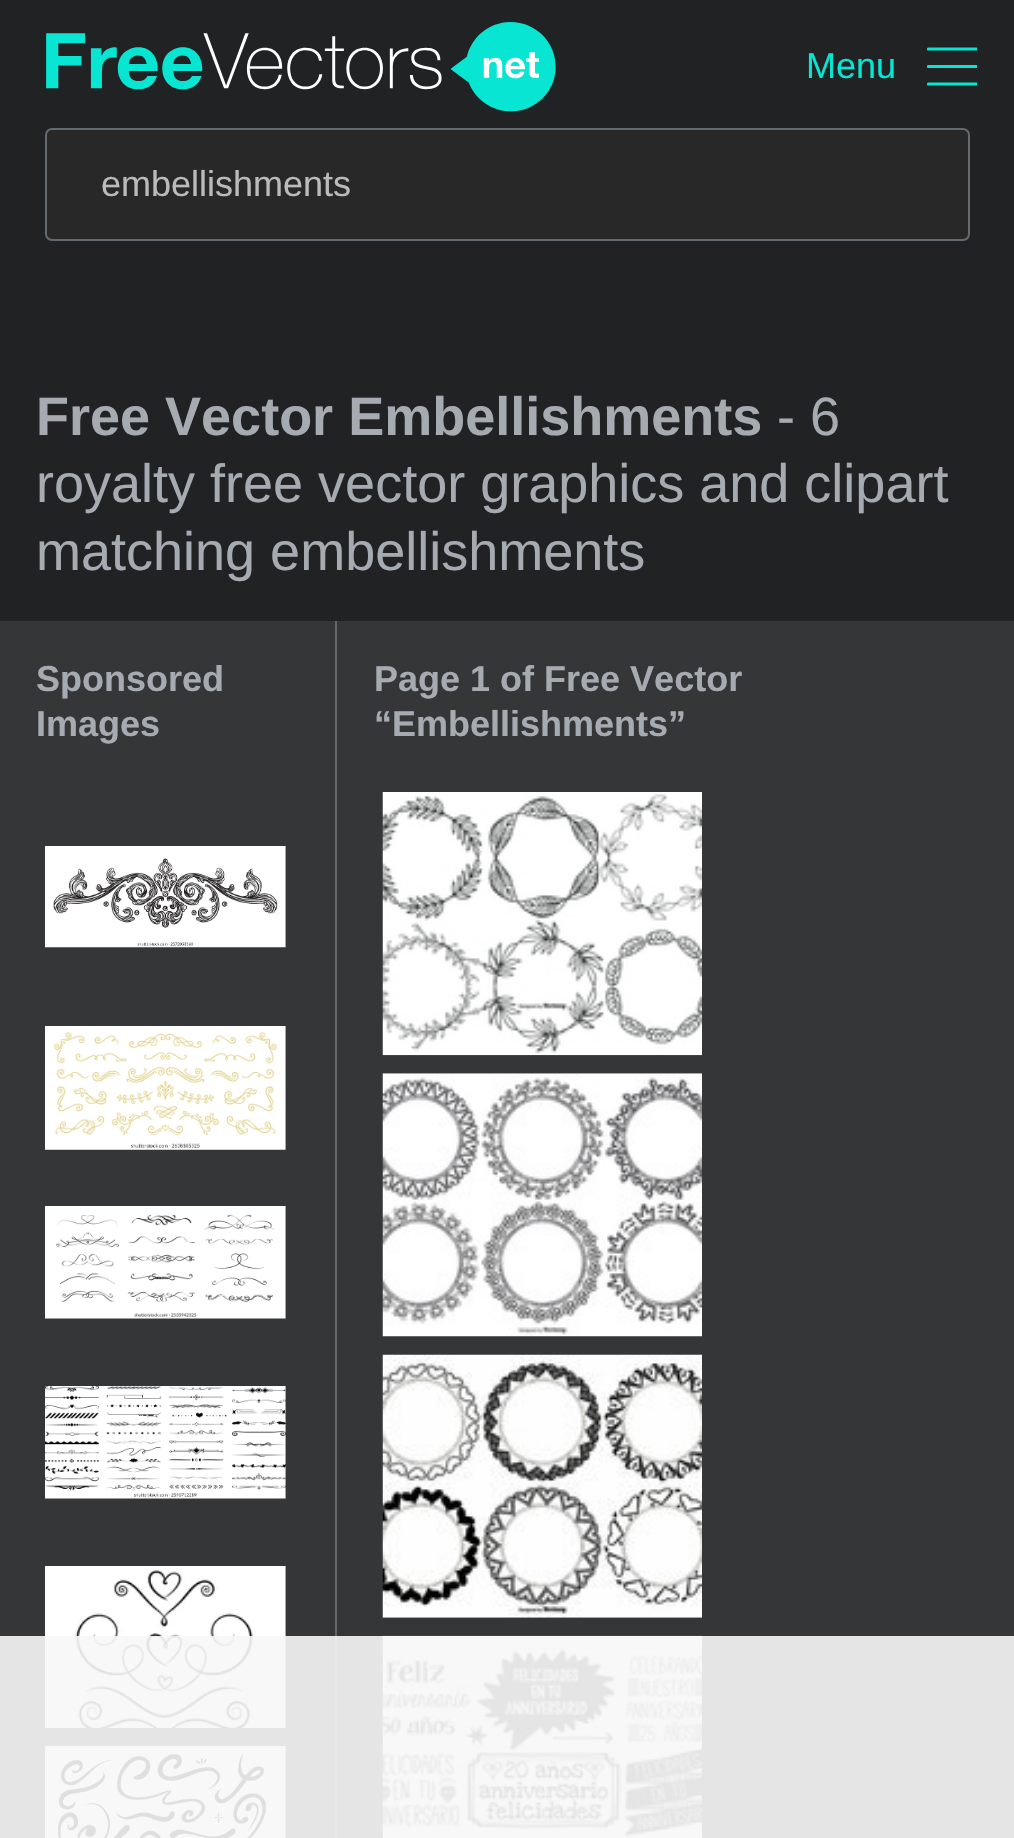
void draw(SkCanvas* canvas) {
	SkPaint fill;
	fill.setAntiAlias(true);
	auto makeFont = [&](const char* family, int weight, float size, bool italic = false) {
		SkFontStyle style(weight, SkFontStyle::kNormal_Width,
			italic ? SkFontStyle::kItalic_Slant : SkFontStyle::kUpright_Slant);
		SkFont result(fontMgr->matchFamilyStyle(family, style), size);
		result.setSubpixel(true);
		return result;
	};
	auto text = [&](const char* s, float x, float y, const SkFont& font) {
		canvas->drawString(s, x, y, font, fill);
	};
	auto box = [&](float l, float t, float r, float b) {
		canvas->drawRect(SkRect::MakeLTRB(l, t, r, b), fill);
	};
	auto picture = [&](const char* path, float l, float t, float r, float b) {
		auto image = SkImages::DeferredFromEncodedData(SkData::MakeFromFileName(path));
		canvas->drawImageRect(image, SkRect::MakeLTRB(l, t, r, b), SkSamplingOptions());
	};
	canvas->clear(0xFF202224);
	picture("image0.png", 46, 22, 556, 112);
	canvas->save();
	canvas->clipRect(SkRect::MakeLTRB(927, 47, 977, 86));
	fill.setStyle(SkPaint::kStroke_Style);
	fill.setStrokeWidth(3.2f);
	fill.setStrokeCap(SkPaint::kRound_Cap);
	fill.setStrokeJoin(SkPaint::kRound_Join);
	fill.setColor(0xFF08E5D2);
	canvas->drawPath(SkPathBuilder().moveTo(928.5f, 49).lineTo(976.5f, 49).moveTo(928.5f, 66.5f).lineTo(976.5f, 66.5f).moveTo(928.5f, 84).lineTo(976.5f, 84).detach(), fill);
	canvas->restore();
	fill.setStyle(SkPaint::kFill_Style);
	fill.setColor(0xFF282828);
	canvas->drawRoundRect(SkRect::MakeLTRB(46, 129, 969, 240), 6, 6, fill);
	fill.setStyle(SkPaint::kStroke_Style);
	fill.setStrokeWidth(2);
	fill.setStrokeCap(SkPaint::kButt_Cap);
	fill.setStrokeJoin(SkPaint::kMiter_Join);
	fill.setColor(0xFF636A70);
	canvas->drawRoundRect(SkRect::MakeLTRB(46, 129, 969, 240), 6, 6, fill);
	fill.setStyle(SkPaint::kFill_Style);
	fill.setColor(0xFF353638);
	box(0, 621, 1014, 1838);
	fill.setColor(0xFF666666);
	box(335, 621, 337, 1838);
	picture("image1.png", 45, 846, 286, 948);
	picture("image2.png", 45, 1026, 286, 1150);
	picture("image3.png", 45, 1206, 286, 1319);
	picture("image4.png", 45, 1386, 286, 1499);
	picture("image5.png", 45, 1566, 286, 1728);
	picture("image6.png", 45, 1746, 286, 1838);
	picture("image7.png", 382, 792, 702, 1056);
	picture("image8.png", 382, 1073, 702, 1337);
	picture("image9.png", 382, 1354, 702, 1618);
	picture("image10.png", 382, 1635, 702, 1838);
	fill.setColor(0xE6F7F7F7);
	box(0, 1636, 1014, 1838);
	auto font1 = makeFont("Liberation Sans", 400, 36);
	fill.setColor(0xFF08E5D2);
	text("Menu", 806, 78, font1);
	fill.setColor(0xFFBBBBBB);
	text("embellishments", 101, 196, font1);
	auto font2 = makeFont("Liberation Sans", 700, 54);
	fill.setColor(0xFFA6AAB1);
	text("Free Vector Embellishments", 36, 435, font2);
	auto font3 = makeFont("Liberation Sans", 400, 54);
	text("- 6", 777, 435, font3);
	text("royalty free vector graphics and clipart", 36, 502, font3);
	text("matching embellishments", 36, 570, font3);
	auto font4 = makeFont("Liberation Sans", 700, 36);
	text("Sponsored", 36, 691, font4);
	text("Images", 36, 736, font4);
	text("Page 1 of Free Vector", 374, 691, font4);
	text("“Embellishments”", 374, 736, font4);
}
